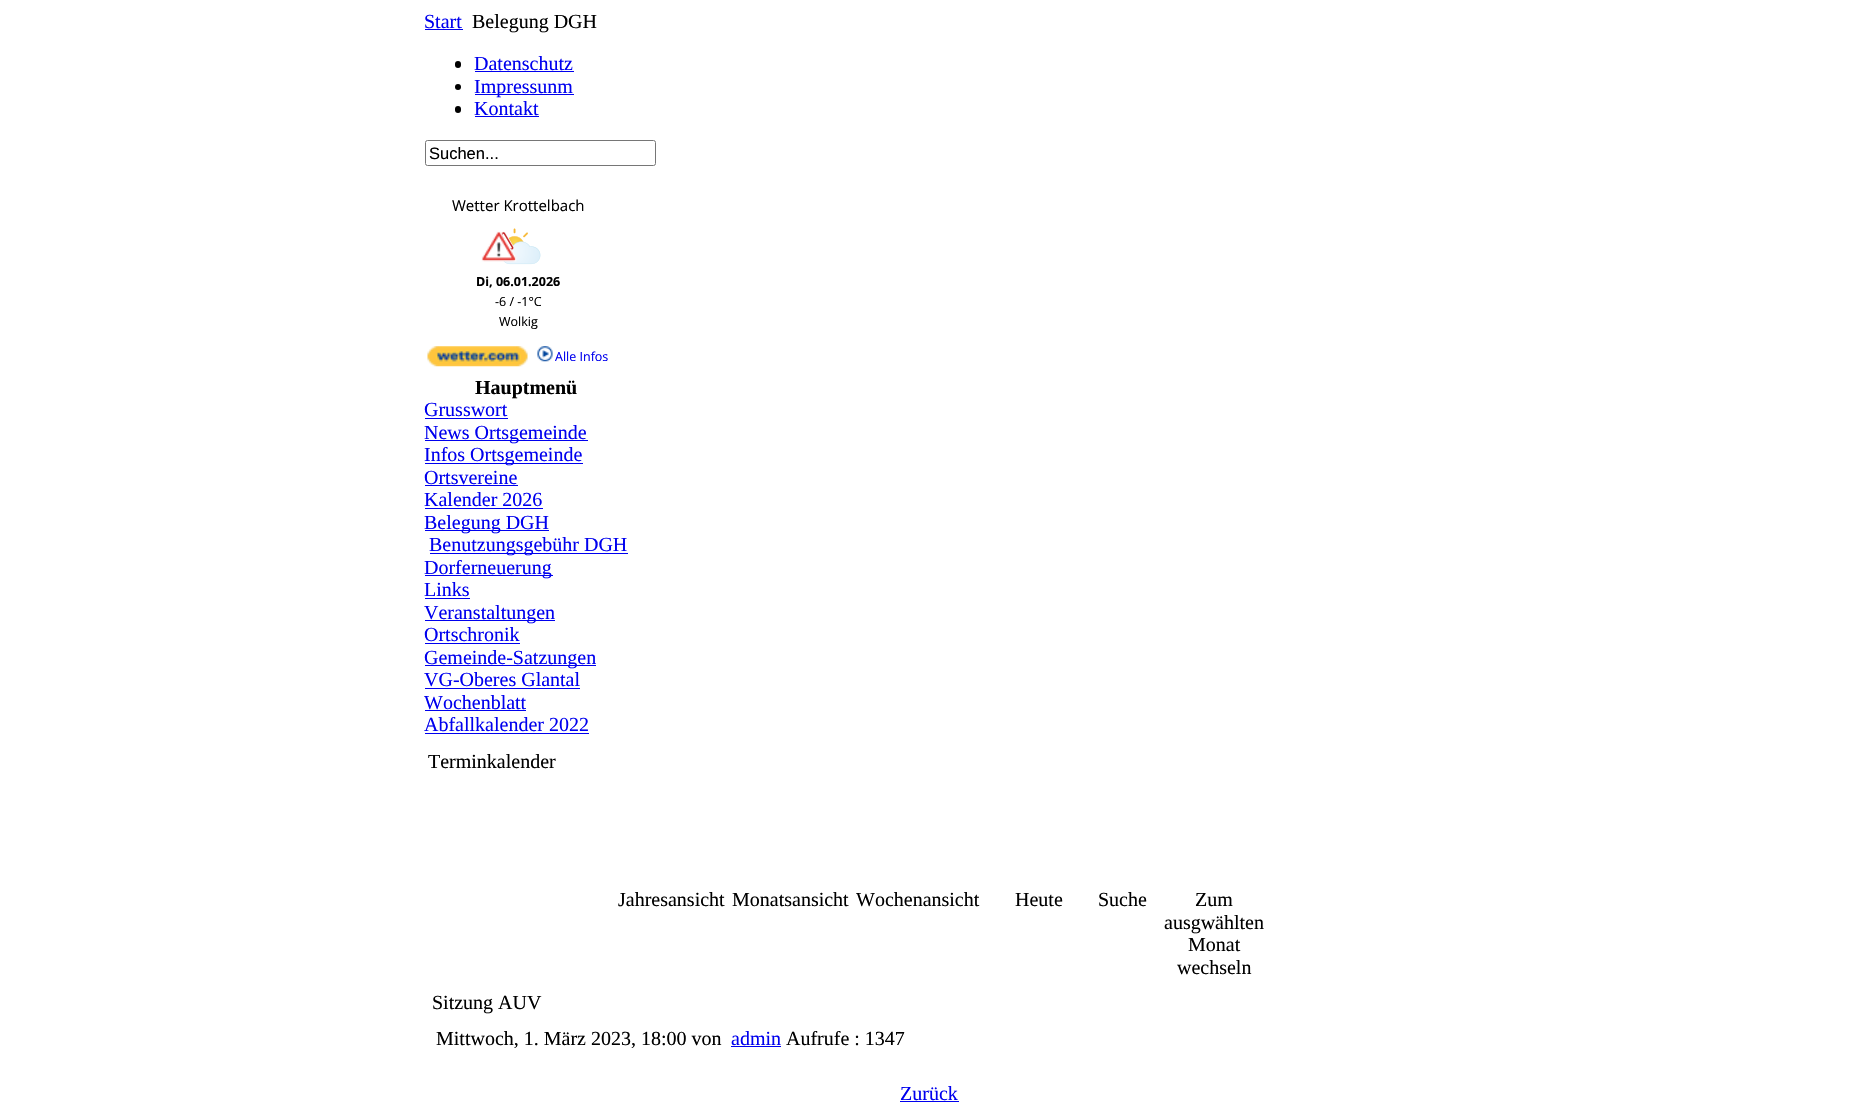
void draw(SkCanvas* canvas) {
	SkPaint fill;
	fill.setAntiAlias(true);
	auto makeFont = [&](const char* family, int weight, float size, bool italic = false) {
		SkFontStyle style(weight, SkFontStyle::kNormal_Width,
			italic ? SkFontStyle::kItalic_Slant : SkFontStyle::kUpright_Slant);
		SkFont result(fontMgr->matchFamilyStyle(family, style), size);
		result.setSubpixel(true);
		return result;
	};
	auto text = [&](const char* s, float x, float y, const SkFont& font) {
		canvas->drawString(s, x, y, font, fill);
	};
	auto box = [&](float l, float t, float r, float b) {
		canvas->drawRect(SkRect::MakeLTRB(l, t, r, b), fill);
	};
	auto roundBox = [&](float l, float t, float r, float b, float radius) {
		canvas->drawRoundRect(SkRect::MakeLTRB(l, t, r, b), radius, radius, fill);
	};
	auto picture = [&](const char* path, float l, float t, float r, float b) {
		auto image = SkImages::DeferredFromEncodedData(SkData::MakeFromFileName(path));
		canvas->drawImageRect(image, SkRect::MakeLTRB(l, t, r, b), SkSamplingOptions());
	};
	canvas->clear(0xFFFFFFFF);
	fill.setColor(0xFF0000EE);
	box(425, 29, 463, 30);
	fill.setColor(0xFF000000);
	roundBox(455, 61, 461, 68, 3);
	fill.setColor(0xFF0000EE);
	box(475, 71, 574, 72);
	fill.setColor(0xFF000000);
	canvas->drawCircle(458, 87, 3, fill);
	fill.setColor(0xFF0000EE);
	box(475, 94, 574, 95);
	fill.setColor(0xFF000000);
	roundBox(455, 106, 461, 113, 3);
	fill.setColor(0xFF0000EE);
	box(475, 116, 539, 117);
	fill.setStyle(SkPaint::kStroke_Style);
	fill.setStrokeWidth(1);
	fill.setColor(0xFF767676);
	canvas->drawRoundRect(SkRect::MakeLTRB(425.5f, 140.5f, 655.5f, 165.5f), 2, 2, fill);
	picture("image1.png", 500, 228, 541, 265);
	picture("image0.png", 481, 231, 517, 262);
	picture("image2.png", 427, 346, 528, 367);
	picture("image3.png", 537, 346, 553, 362);
	fill.setStyle(SkPaint::kFill_Style);
	fill.setColor(0xFF0000EE);
	box(425, 418, 508, 419);
	box(425, 440, 588, 441);
	box(425, 463, 583, 464);
	box(425, 485, 518, 486);
	box(425, 508, 543, 509);
	box(425, 530, 549, 531);
	box(430, 553, 628, 554);
	box(425, 575, 553, 576);
	box(425, 598, 470, 599);
	box(425, 620, 555, 621);
	box(425, 643, 520, 644);
	box(425, 665, 596, 666);
	box(425, 688, 580, 689);
	box(425, 710, 526, 711);
	box(425, 733, 589, 734);
	box(731, 1046, 781, 1047);
	box(900, 1101, 959, 1102);
	auto font1 = makeFont("Liberation Serif", 400, 20);
	text("Start", 424, 28, font1);
	fill.setColor(0xFF000000);
	text("Belegung DGH", 472, 28, font1);
	fill.setColor(0xFF0000EE);
	text("Datenschutz", 474, 70, font1);
	text("Impressunm", 474, 93, font1);
	text("Kontakt", 474, 115, font1);
	auto font2 = makeFont("Liberation Sans", 400, 16.5f);
	fill.setColor(0xFF000000);
	text("Suchen...", 429, 159, font2);
	auto font3 = makeFont("Open Sans", 400, 15);
	text("Wetter Krottelbach", 452, 211, font3);
	auto font4 = makeFont("Open Sans", 700, 12.5f);
	text("Di, 06.01.2026", 476, 286, font4);
	auto font5 = makeFont("Open Sans", 400, 12.5f);
	text("-6 / -1°C", 495, 306, font5);
	text("Wolkig", 499, 326, font5);
	fill.setColor(0xFF0000EE);
	text("Alle Infos", 555, 361, font5);
	auto font6 = makeFont("Liberation Serif", 700, 20);
	fill.setColor(0xFF000000);
	text("Hauptmenü", 475, 394, font6);
	fill.setColor(0xFF0000EE);
	text("Grusswort", 424, 416, font1);
	text("News Ortsgemeinde", 424, 439, font1);
	text("Infos Ortsgemeinde", 424, 461, font1);
	text("Ortsvereine", 424, 484, font1);
	text("Kalender 2026", 424, 506, font1);
	text("Belegung DGH", 424, 529, font1);
	text("Benutzungsgebühr DGH", 429, 551, font1);
	text("Dorferneuerung", 424, 574, font1);
	text("Links", 424, 596, font1);
	text("Veranstaltungen", 424, 619, font1);
	text("Ortschronik", 424, 641, font1);
	text("Gemeinde-Satzungen", 424, 664, font1);
	text("VG-Oberes Glantal", 424, 686, font1);
	text("Wochenblatt", 424, 709, font1);
	text("Abfallkalender 2022", 424, 731, font1);
	fill.setColor(0xFF000000);
	text("Terminkalender", 428, 768, font1);
	text("Jahresansicht", 618, 906, font1);
	text("Monatsansicht", 732, 906, font1);
	text("Wochenansicht", 856, 906, font1);
	text("Heute", 1015, 906, font1);
	text("Suche", 1098, 906, font1);
	text("Zum", 1195, 906, font1);
	text("ausgwählten", 1164, 929, font1);
	text("Monat", 1188, 951, font1);
	text("wechseln", 1177, 974, font1);
	text("Sitzung AUV", 432, 1009, font1);
	text("Mittwoch, 1. März 2023, 18:00 von", 436, 1045, font1);
	fill.setColor(0xFF0000EE);
	text("admin", 731, 1045, font1);
	fill.setColor(0xFF000000);
	text("Aufrufe : 1347", 786, 1045, font1);
	fill.setColor(0xFF0000EE);
	text("Zurück", 900, 1100, font1);
}
